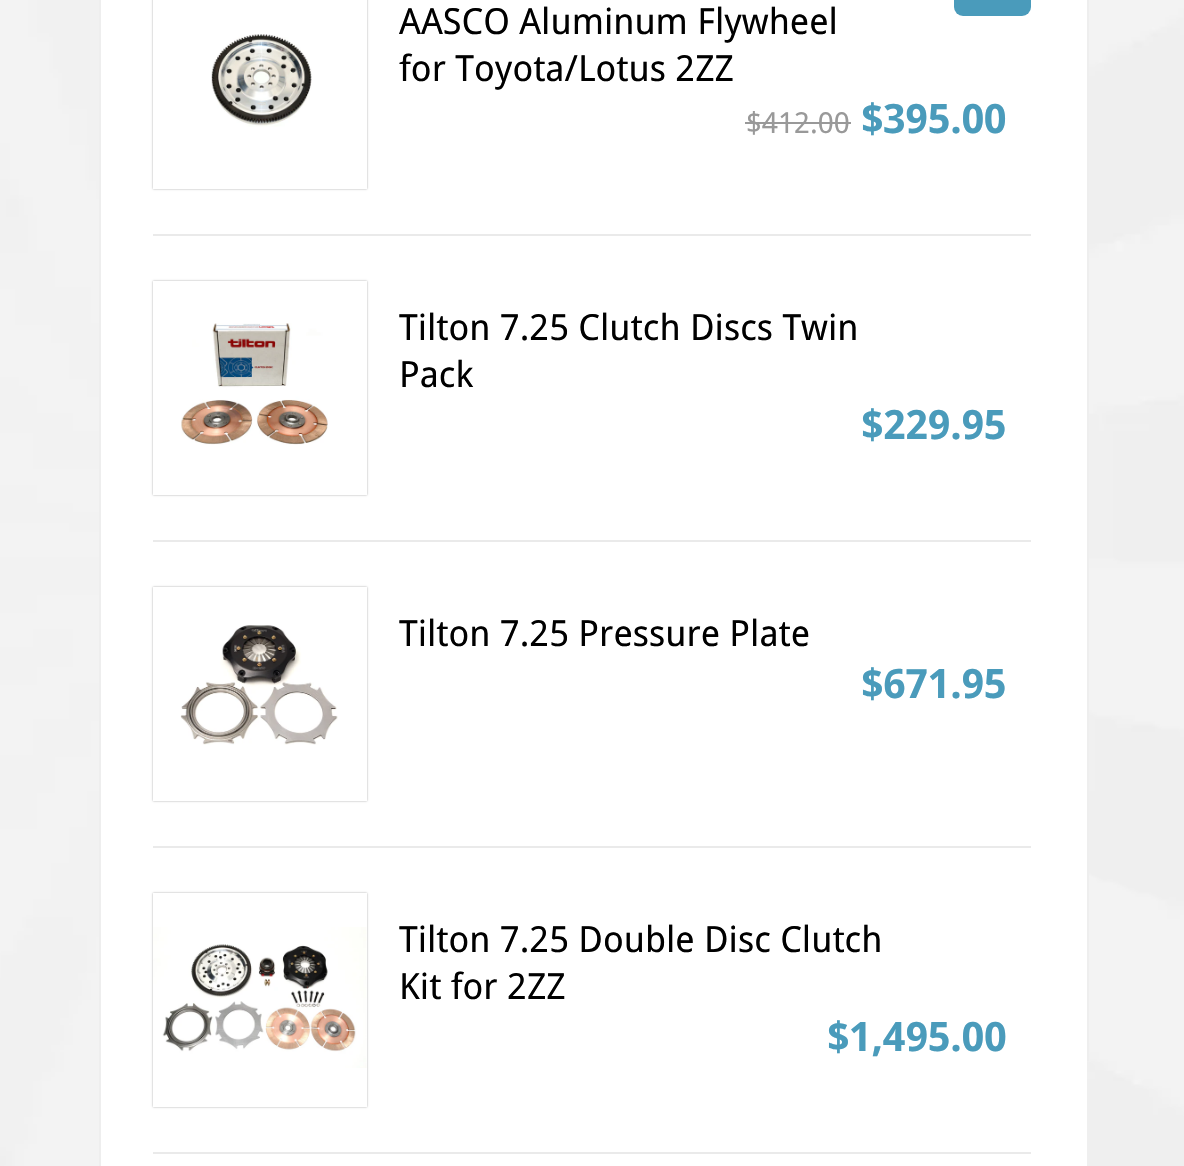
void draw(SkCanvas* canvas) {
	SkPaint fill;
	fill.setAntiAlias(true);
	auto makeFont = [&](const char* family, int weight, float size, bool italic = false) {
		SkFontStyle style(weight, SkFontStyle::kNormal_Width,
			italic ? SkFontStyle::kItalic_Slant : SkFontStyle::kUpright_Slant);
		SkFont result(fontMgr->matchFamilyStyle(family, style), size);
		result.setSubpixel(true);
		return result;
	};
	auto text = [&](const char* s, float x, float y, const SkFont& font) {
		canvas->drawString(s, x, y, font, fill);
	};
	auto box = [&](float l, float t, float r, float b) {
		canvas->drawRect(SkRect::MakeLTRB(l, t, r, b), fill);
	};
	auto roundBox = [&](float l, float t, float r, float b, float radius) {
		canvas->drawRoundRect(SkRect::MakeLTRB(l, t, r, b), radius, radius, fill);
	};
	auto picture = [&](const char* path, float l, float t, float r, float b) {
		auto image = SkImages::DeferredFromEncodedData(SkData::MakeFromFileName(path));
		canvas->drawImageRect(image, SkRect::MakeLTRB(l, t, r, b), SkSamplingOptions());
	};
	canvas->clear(0xFFFFFFFF);
	picture("image0.png", 0, 0, 1184, 1166);
	fill.setColor(0xFFFFFFFF);
	box(101, 0, 1087, 1166);
	fill.setColor(0xFFEEEEEE);
	box(1087, 0, 1089, 1061);
	box(99, 0, 101, 1166);
	fill.setColor(0xFFEAEAEA);
	box(153, 234, 1031, 236);
	fill.setColor(0xFF4A9BBB);
	roundBox(954, -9, 1031, 16, 9);
	fill.setColor(0xFFAAAAAA);
	fill.setMaskFilter(SkMaskFilter::MakeBlur(kNormal_SkBlurStyle, 1));
	canvas->drawRect(SkRect::MakeLTRB(153, -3, 367, 189), fill);
	fill.setMaskFilter(nullptr);
	fill.setColor(0xFFFFFFFF);
	box(153, 0, 367, 189);
	picture("image1.png", 211, 34, 312, 127);
	fill.setColor(0xFF999999);
	box(745, 122, 851, 124);
	fill.setColor(0xFFEAEAEA);
	box(153, 540, 1031, 542);
	fill.setColor(0xFFAAAAAA);
	fill.setMaskFilter(SkMaskFilter::MakeBlur(kNormal_SkBlurStyle, 1));
	canvas->drawRect(SkRect::MakeLTRB(153, 281, 367, 495), fill);
	fill.setMaskFilter(nullptr);
	fill.setColor(0xFFFFFFFF);
	box(153, 281, 367, 495);
	picture("image2.png", 181, 323, 328, 445);
	fill.setColor(0xFFEAEAEA);
	box(153, 846, 1031, 848);
	fill.setColor(0xFFAAAAAA);
	fill.setMaskFilter(SkMaskFilter::MakeBlur(kNormal_SkBlurStyle, 1));
	canvas->drawRect(SkRect::MakeLTRB(153, 587, 367, 801), fill);
	fill.setMaskFilter(nullptr);
	fill.setColor(0xFFFFFFFF);
	box(153, 587, 367, 801);
	picture("image3.png", 180, 625, 338, 745);
	fill.setColor(0xFFEAEAEA);
	box(153, 1152, 1031, 1154);
	fill.setColor(0xFFAAAAAA);
	fill.setMaskFilter(SkMaskFilter::MakeBlur(kNormal_SkBlurStyle, 1));
	canvas->drawRect(SkRect::MakeLTRB(153, 893, 367, 1107), fill);
	fill.setMaskFilter(nullptr);
	fill.setColor(0xFFFFFFFF);
	box(153, 893, 367, 1107);
	picture("image4.png", 153, 927, 367, 1068);
	auto font1 = makeFont("Droid Sans", 400, 36);
	fill.setColor(0xFF000000);
	text("AASCO Aluminum Flywheel", 399, 34, font1);
	text("for Toyota/Lotus 2ZZ", 399, 81, font1);
	auto font2 = makeFont("Droid Sans", 400, 29);
	fill.setColor(0xFF999999);
	text("$412.00", 746, 133, font2);
	auto font3 = makeFont("Droid Sans", 700, 40.5f);
	fill.setColor(0xFF4A9BBB);
	text("$395.00", 861, 133, font3);
	fill.setColor(0xFF000000);
	text("Tilton 7.25 Clutch Discs Twin", 399, 340, font1);
	text("Pack", 399, 387, font1);
	fill.setColor(0xFF4A9BBB);
	text("$229.95", 861, 439, font3);
	fill.setColor(0xFF000000);
	text("Tilton 7.25 Pressure Plate", 399, 646, font1);
	fill.setColor(0xFF4A9BBB);
	text("$671.95", 861, 698, font3);
	fill.setColor(0xFF000000);
	text("Tilton 7.25 Double Disc Clutch", 399, 952, font1);
	text("Kit for 2ZZ", 399, 999, font1);
	fill.setColor(0xFF4A9BBB);
	text("$1,495.00", 827, 1051, font3);
}
